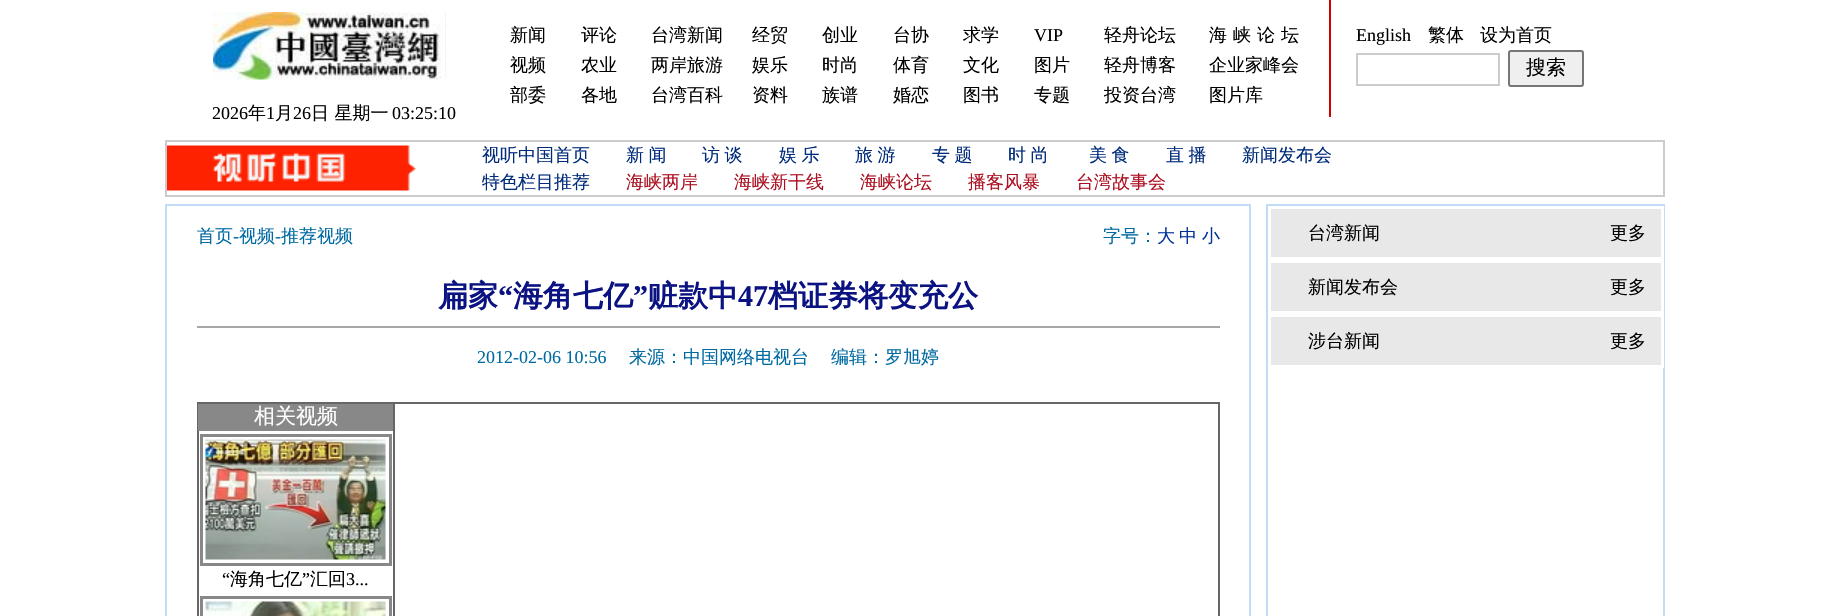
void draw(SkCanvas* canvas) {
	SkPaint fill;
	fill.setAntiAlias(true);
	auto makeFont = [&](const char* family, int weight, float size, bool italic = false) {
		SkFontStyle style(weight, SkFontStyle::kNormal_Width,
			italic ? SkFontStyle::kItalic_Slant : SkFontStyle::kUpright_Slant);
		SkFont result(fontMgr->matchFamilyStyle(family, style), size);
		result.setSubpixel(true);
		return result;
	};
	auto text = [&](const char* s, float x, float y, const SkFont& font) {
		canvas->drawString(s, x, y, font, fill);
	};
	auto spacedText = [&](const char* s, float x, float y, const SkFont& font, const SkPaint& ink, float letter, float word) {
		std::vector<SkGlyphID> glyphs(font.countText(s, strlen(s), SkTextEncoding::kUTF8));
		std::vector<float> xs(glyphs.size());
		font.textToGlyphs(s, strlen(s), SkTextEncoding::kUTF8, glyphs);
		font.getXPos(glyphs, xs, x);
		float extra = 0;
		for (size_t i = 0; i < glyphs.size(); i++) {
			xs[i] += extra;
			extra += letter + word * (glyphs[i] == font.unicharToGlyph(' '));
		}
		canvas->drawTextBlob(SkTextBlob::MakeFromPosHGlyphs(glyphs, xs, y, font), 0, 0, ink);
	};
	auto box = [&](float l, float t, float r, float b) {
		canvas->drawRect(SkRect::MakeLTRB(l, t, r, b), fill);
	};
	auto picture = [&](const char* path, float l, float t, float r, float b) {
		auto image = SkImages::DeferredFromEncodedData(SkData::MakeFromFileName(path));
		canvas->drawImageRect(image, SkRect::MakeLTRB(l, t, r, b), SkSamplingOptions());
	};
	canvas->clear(0xFFFFFFFF);
	fill.setColor(0xFFE8E8E8);
	box(445, 12, 446, 78);
	picture("image0.png", 213, 12, 446, 80);
	fill.setColor(0xFFCC0000);
	box(1329, 0, 1331, 117);
	fill.setStyle(SkPaint::kStroke_Style);
	fill.setStrokeWidth(2);
	fill.setColor(0xFFCCCCCC);
	canvas->drawRect(SkRect::MakeLTRB(1357, 54, 1499, 85), fill);
	fill.setStyle(SkPaint::kFill_Style);
	fill.setColor(0xFFEFEFEF);
	canvas->drawRoundRect(SkRect::MakeLTRB(1509, 51, 1583, 86), 2, 2, fill);
	fill.setStyle(SkPaint::kStroke_Style);
	fill.setColor(0xFF767676);
	canvas->drawRoundRect(SkRect::MakeLTRB(1509, 51, 1583, 86), 2, 2, fill);
	picture("image1.png", 167, 145, 416, 191);
	fill.setColor(0xFFCCCCCC);
	canvas->drawRect(SkRect::MakeLTRB(166, 141, 1664, 196), fill);
	fill.setColor(0xFFC1DCF7);
	canvas->drawRect(SkRect::MakeLTRB(166, 205, 1250, 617), fill);
	fill.setStyle(SkPaint::kFill_Style);
	fill.setColor(0xFFA7A7A7);
	box(197, 326, 1220, 328);
	fill.setStyle(SkPaint::kStroke_Style);
	fill.setColor(0xFF666666);
	canvas->drawRect(SkRect::MakeLTRB(198, 403, 1219, 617), fill);
	fill.setStyle(SkPaint::kFill_Style);
	box(393, 404, 395, 616);
	fill.setColor(0xFF888888);
	box(198, 404, 393, 431);
	fill.setStyle(SkPaint::kStroke_Style);
	fill.setStrokeWidth(3);
	canvas->drawRect(SkRect::MakeLTRB(201.5f, 435.5f, 390.5f, 564.5f), fill);
	picture("image2.png", 205, 439, 386, 560);
	canvas->drawRect(SkRect::MakeLTRB(201.5f, 597.5f, 390.5f, 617.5f), fill);
	picture("image3.png", 205, 601, 386, 616);
	fill.setStrokeWidth(2);
	fill.setColor(0xFFC1DCF7);
	canvas->drawRect(SkRect::MakeLTRB(1267, 205, 1664, 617), fill);
	fill.setStyle(SkPaint::kFill_Style);
	fill.setColor(0xFFE8E8E8);
	canvas->drawRect(SkRect::MakeLTRB(1269.5f, 207.5f, 1662.5f, 258.5f), fill);
	fill.setStyle(SkPaint::kStroke_Style);
	fill.setStrokeWidth(3);
	fill.setColor(0xFFFFFFFF);
	canvas->drawRect(SkRect::MakeLTRB(1269.5f, 207.5f, 1662.5f, 258.5f), fill);
	fill.setStyle(SkPaint::kFill_Style);
	fill.setColor(0xFFE8E8E8);
	canvas->drawRect(SkRect::MakeLTRB(1269.5f, 261.5f, 1662.5f, 312.5f), fill);
	fill.setStyle(SkPaint::kStroke_Style);
	fill.setColor(0xFFFFFFFF);
	canvas->drawRect(SkRect::MakeLTRB(1269.5f, 261.5f, 1662.5f, 312.5f), fill);
	fill.setStyle(SkPaint::kFill_Style);
	fill.setColor(0xFFE8E8E8);
	canvas->drawRect(SkRect::MakeLTRB(1269.5f, 315.5f, 1662.5f, 366.5f), fill);
	fill.setStyle(SkPaint::kStroke_Style);
	fill.setColor(0xFFFFFFFF);
	canvas->drawRect(SkRect::MakeLTRB(1269.5f, 315.5f, 1662.5f, 366.5f), fill);
	auto font1 = makeFont("WenQuanYi Zen Hei", 500, 18);
	fill.setStyle(SkPaint::kFill_Style);
	fill.setColor(0xFF000000);
	text("新闻", 510, 41, font1);
	text("视频", 510, 71, font1);
	text("部委", 510, 101, font1);
	text("评论", 581, 41, font1);
	text("农业", 581, 71, font1);
	text("各地", 581, 101, font1);
	text("台湾新闻", 651, 41, font1);
	text("两岸旅游", 651, 71, font1);
	text("台湾百科", 651, 101, font1);
	text("经贸", 752, 41, font1);
	text("娱乐", 752, 71, font1);
	text("资料", 752, 101, font1);
	text("创业", 822, 41, font1);
	text("时尚", 822, 71, font1);
	text("族谱", 822, 101, font1);
	text("台协", 893, 41, font1);
	text("体育", 893, 71, font1);
	text("婚恋", 893, 101, font1);
	text("求学", 963, 41, font1);
	text("文化", 963, 71, font1);
	text("图书", 963, 101, font1);
	auto font2 = makeFont("Liberation Serif", 400, 18);
	text("VIP", 1034, 41, font2);
	text("图片", 1034, 71, font1);
	text("专题", 1034, 101, font1);
	text("轻舟论坛", 1104, 41, font1);
	text("轻舟博客", 1104, 71, font1);
	text("投资台湾", 1104, 101, font1);
	spacedText("海峡论坛", 1209, 41, font1, fill, 6, 0);
	text("企业家峰会", 1209, 71, font1);
	text("图片库", 1209, 101, font1);
	text("English", 1356, 41, font2);
	text("繁体", 1428, 41, font1);
	text("设为首页", 1480, 41, font1);
	auto font3 = makeFont("WenQuanYi Zen Hei", 500, 20);
	text("搜索", 1526, 74, font3);
	text("2026", 212, 119, font2);
	text("年", 248, 119, font1);
	text("1", 266, 119, font2);
	text("月", 275, 119, font1);
	text("26", 293, 119, font2);
	text("日 星期一", 311, 119, font1);
	text("03:25:10", 392, 119, font2);
	fill.setColor(0xFF002B7B);
	text("视听中国首页", 482, 161, font1);
	spacedText("新 闻", 626, 161, font1, fill, 0, -1);
	spacedText("访 谈", 702, 161, font1, fill, 0, -1);
	spacedText("娱 乐", 779, 161, font1, fill, 0, -1);
	spacedText("旅 游", 855, 161, font1, fill, 0, -1);
	spacedText("专 题", 932, 161, font1, fill, 0, -1);
	spacedText("时 尚", 1008, 161, font1, fill, 0, -1);
	spacedText("美 食", 1089, 161, font1, fill, 0, -1);
	spacedText("直 播", 1166, 161, font1, fill, 0, -1);
	text("新闻发布会", 1242, 161, font1);
	text("特色栏目推荐", 482, 188, font1);
	fill.setColor(0xFFAC0F20);
	text("海峡两岸", 626, 188, font1);
	text("海峡新干线", 734, 188, font1);
	text("海峡论坛", 860, 188, font1);
	text("播客风暴", 968, 188, font1);
	text("台湾故事会", 1076, 188, font1);
	fill.setColor(0xFF006AA2);
	text("首页", 197, 242, font1);
	text("-", 233, 242, font2);
	text("视频", 239, 242, font1);
	text("-", 275, 242, font2);
	text("推荐视频", 281, 242, font1);
	text("字号：", 1103, 242, font1);
	fill.setColor(0xFF003399);
	text("大", 1157, 242, font1);
	text("中", 1179, 242, font1);
	text("小", 1202, 242, font1);
	auto font4 = makeFont("WenQuanYi Zen Hei", 700, 30);
	fill.setColor(0xFF0B1281);
	text("扁家", 438, 306, font4);
	auto font5 = makeFont("Liberation Serif", 700, 30);
	text("“", 498, 306, font5);
	text("海角七亿", 513, 306, font4);
	text("”", 633, 306, font5);
	text("赃款中", 648, 306, font4);
	text("47", 738, 306, font5);
	text("档证券将变充公", 768, 306, font4);
	fill.setColor(0xFF006AA2);
	text("2012-02-06 10:56", 477, 363, font2);
	text("来源：中国网络电视台", 629, 363, font1);
	text("编辑：罗旭婷", 831, 363, font1);
	auto font6 = makeFont("WenQuanYi Zen Hei", 500, 21);
	fill.setColor(0xFFFFFFFF);
	text("相关视频", 254, 423, font6);
	fill.setColor(0xFF000000);
	text("“", 222, 585, font2);
	text("海角七亿", 230, 585, font1);
	text("”", 302, 585, font2);
	text("汇回", 310, 585, font1);
	text("3...", 346, 585, font2);
	text("台湾新闻", 1308, 239, font1);
	text("更多", 1610, 239, font1);
	text("新闻发布会", 1308, 293, font1);
	text("更多", 1610, 293, font1);
	text("涉台新闻", 1308, 347, font1);
	text("更多", 1610, 347, font1);
}
